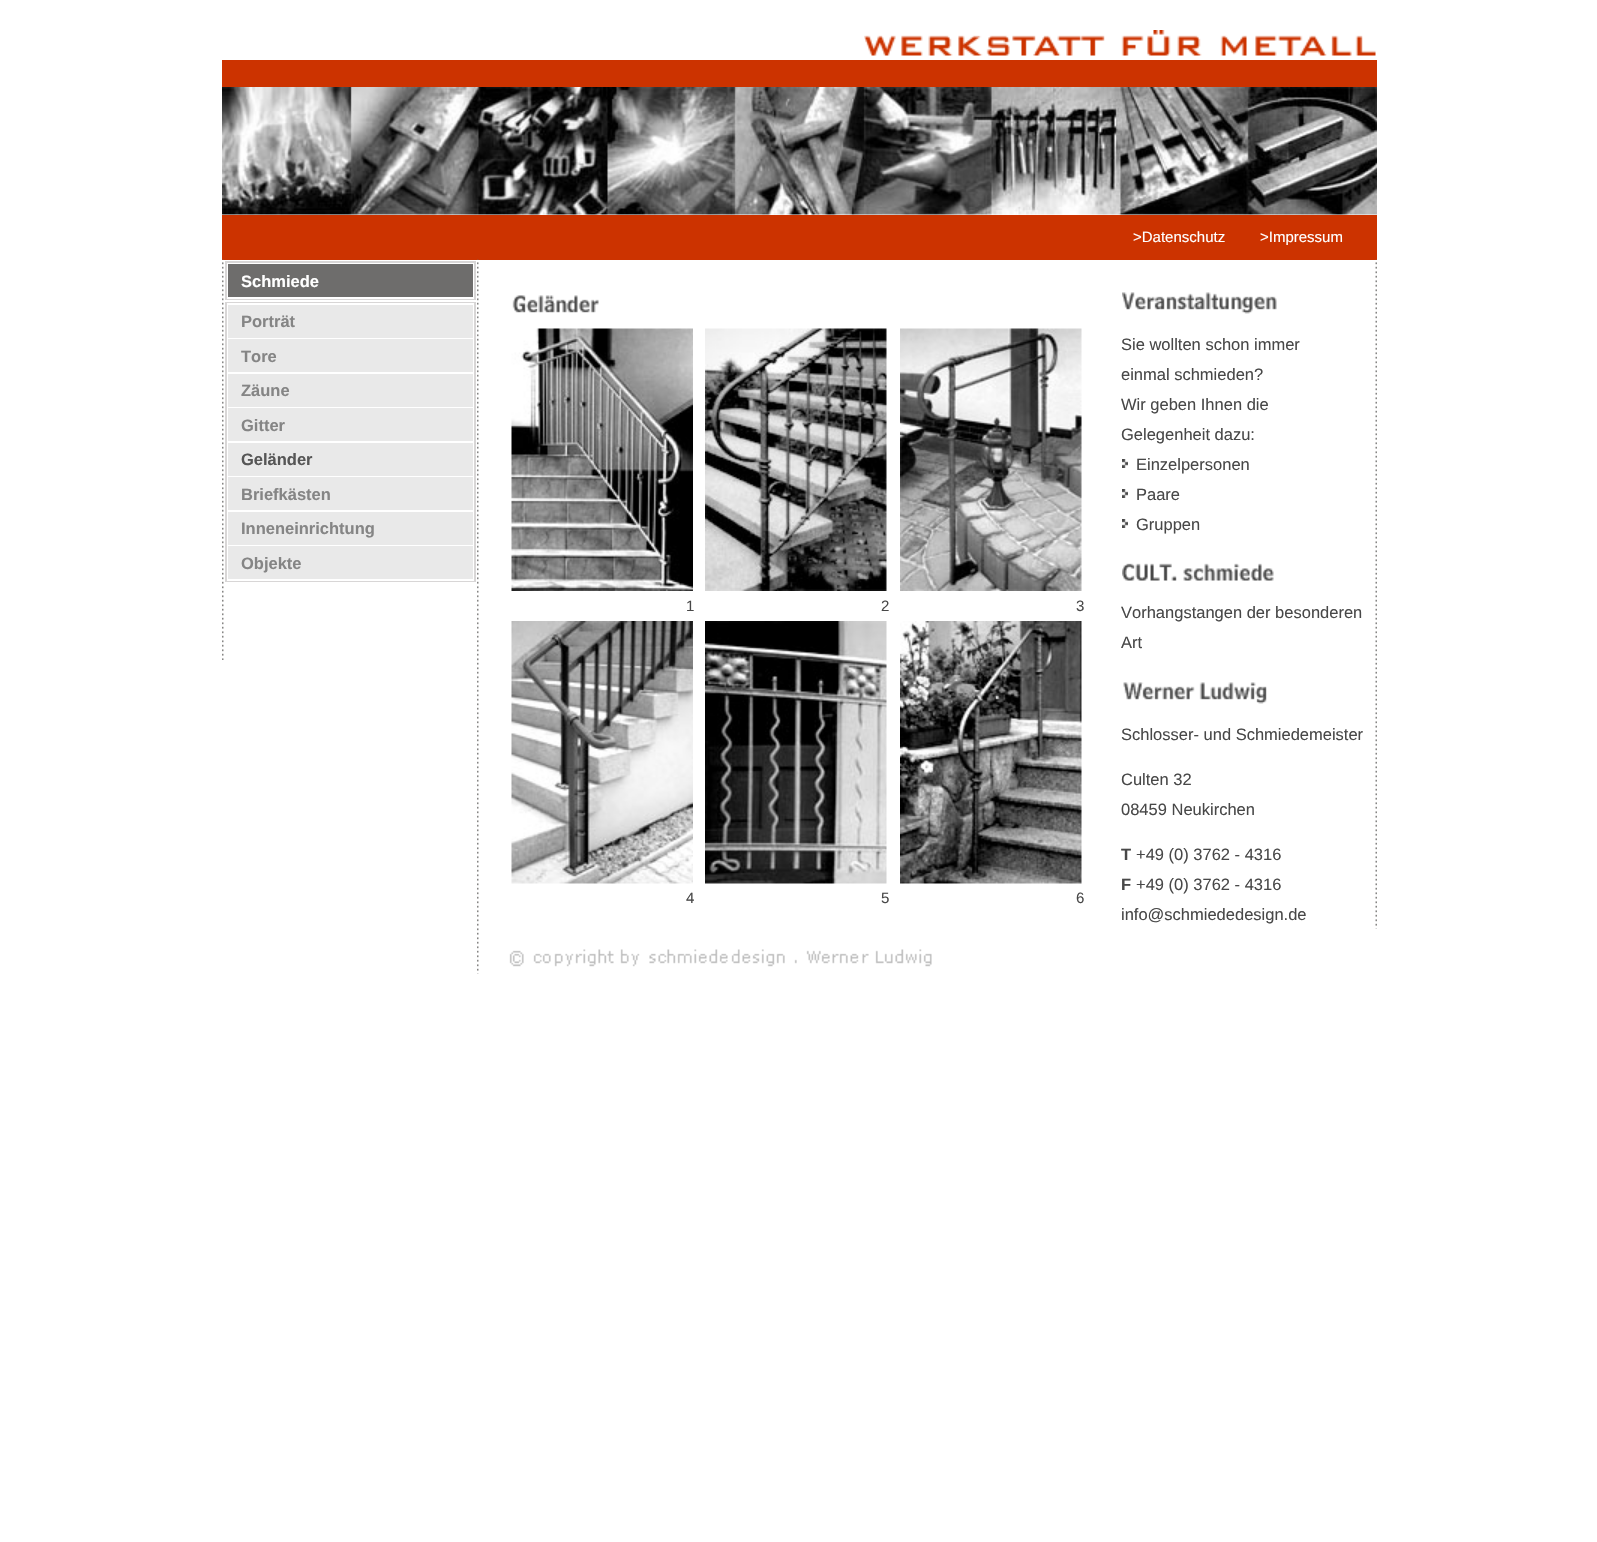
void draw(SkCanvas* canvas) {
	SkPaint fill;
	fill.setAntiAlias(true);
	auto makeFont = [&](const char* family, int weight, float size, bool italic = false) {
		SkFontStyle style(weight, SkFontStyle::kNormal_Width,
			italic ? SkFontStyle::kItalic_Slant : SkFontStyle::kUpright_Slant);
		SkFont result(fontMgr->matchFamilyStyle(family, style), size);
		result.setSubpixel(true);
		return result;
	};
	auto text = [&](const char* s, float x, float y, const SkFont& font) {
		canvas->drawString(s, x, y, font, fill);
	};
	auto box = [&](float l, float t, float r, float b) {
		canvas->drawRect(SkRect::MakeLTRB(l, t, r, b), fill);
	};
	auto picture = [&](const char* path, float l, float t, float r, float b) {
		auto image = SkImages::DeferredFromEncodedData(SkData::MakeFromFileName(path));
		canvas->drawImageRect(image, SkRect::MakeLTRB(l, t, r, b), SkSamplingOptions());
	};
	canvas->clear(0xFFFFFFFF);
	picture("image0.png", 864, 30, 1376, 56);
	fill.setColor(0xFFCC3300);
	box(222, 60, 1377, 87);
	picture("image1.png", 222, 87, 1377, 215);
	box(222, 215, 1377, 260);
	picture("image2.png", 222, 259, 224, 660);
	fill.setColor(0xFFD8D6D6);
	box(225, 261, 476, 300);
	fill.setColor(0xFFFFFFFF);
	box(227, 263, 474, 299);
	fill.setColor(0xFF6E6D6C);
	box(228, 264, 473, 297);
	fill.setColor(0xFFD8D6D6);
	box(225, 302, 476, 582);
	fill.setColor(0xFFFFFFFF);
	box(227, 303, 474, 581);
	fill.setColor(0xFFE9E9E9);
	box(228, 305, 473, 338);
	box(228, 339, 473, 372);
	box(228, 374, 473, 407);
	box(228, 408, 473, 441);
	box(228, 443, 473, 476);
	box(228, 477, 473, 510);
	box(228, 512, 473, 545);
	box(228, 546, 473, 579);
	picture("image3.png", 477, 259, 479, 974);
	picture("image4.png", 512, 295, 599, 313);
	picture("image5.png", 511, 328, 693, 591);
	picture("image6.png", 705, 328, 887, 591);
	picture("image7.png", 900, 328, 1082, 591);
	picture("image8.png", 511, 621, 693, 884);
	picture("image9.png", 705, 621, 887, 884);
	picture("image10.png", 900, 621, 1082, 884);
	picture("image11.png", 509, 949, 932, 967);
	picture("image12.png", 1122, 292, 1277, 314);
	picture("image13.png", 1122, 459, 1128, 468);
	picture("image13.png", 1122, 489, 1128, 498);
	picture("image13.png", 1122, 519, 1128, 528);
	picture("image14.png", 1122, 563, 1274, 581);
	picture("image15.png", 1123, 682, 1267, 704);
	picture("image16.png", 1375, 259, 1377, 929);
	auto font1 = makeFont("Liberation Sans", 400, 15);
	fill.setColor(0xFFFFFFFF);
	text(">Datenschutz", 1133, 242, font1);
	text(">Impressum", 1260, 242, font1);
	auto font2 = makeFont("Liberation Sans", 700, 16.5f);
	text("Schmiede", 241, 287, font2);
	fill.setColor(0xFF858585);
	text("Porträt", 241, 327, font2);
	text("Tore", 241, 362, font2);
	text("Zäune", 241, 396, font2);
	text("Gitter", 241, 431, font2);
	fill.setColor(0xFF565656);
	text("Geländer", 241, 465, font2);
	fill.setColor(0xFF858585);
	text("Briefkästen", 241, 500, font2);
	text("Inneneinrichtung", 241, 534, font2);
	text("Objekte", 241, 569, font2);
	fill.setColor(0xFF484848);
	text("1", 686, 611, font1);
	text("2", 881, 611, font1);
	text("3", 1076, 611, font1);
	text("4", 686, 903, font1);
	text("5", 881, 903, font1);
	text("6", 1076, 903, font1);
	auto font3 = makeFont("Liberation Sans", 400, 16.5f);
	text("Sie wollten schon immer", 1121, 350, font3);
	text("einmal schmieden?", 1121, 380, font3);
	text("Wir geben Ihnen die", 1121, 410, font3);
	text("Gelegenheit dazu:", 1121, 440, font3);
	text("Einzelpersonen", 1136, 470, font3);
	text("Paare", 1136, 500, font3);
	text("Gruppen", 1136, 530, font3);
	text("Vorhangstangen der besonderen", 1121, 618, font3);
	text("Art", 1121, 648, font3);
	text("Schlosser- und Schmiedemeister", 1121, 740, font3);
	text("Culten 32", 1121, 785, font3);
	text("08459 Neukirchen", 1121, 815, font3);
	text("T", 1121, 860, font2);
	text("+49 (0) 3762 - 4316", 1136, 860, font3);
	text("F", 1121, 890, font2);
	text("+49 (0) 3762 - 4316", 1136, 890, font3);
	text("info@schmiededesign.de", 1121, 920, font3);
}
